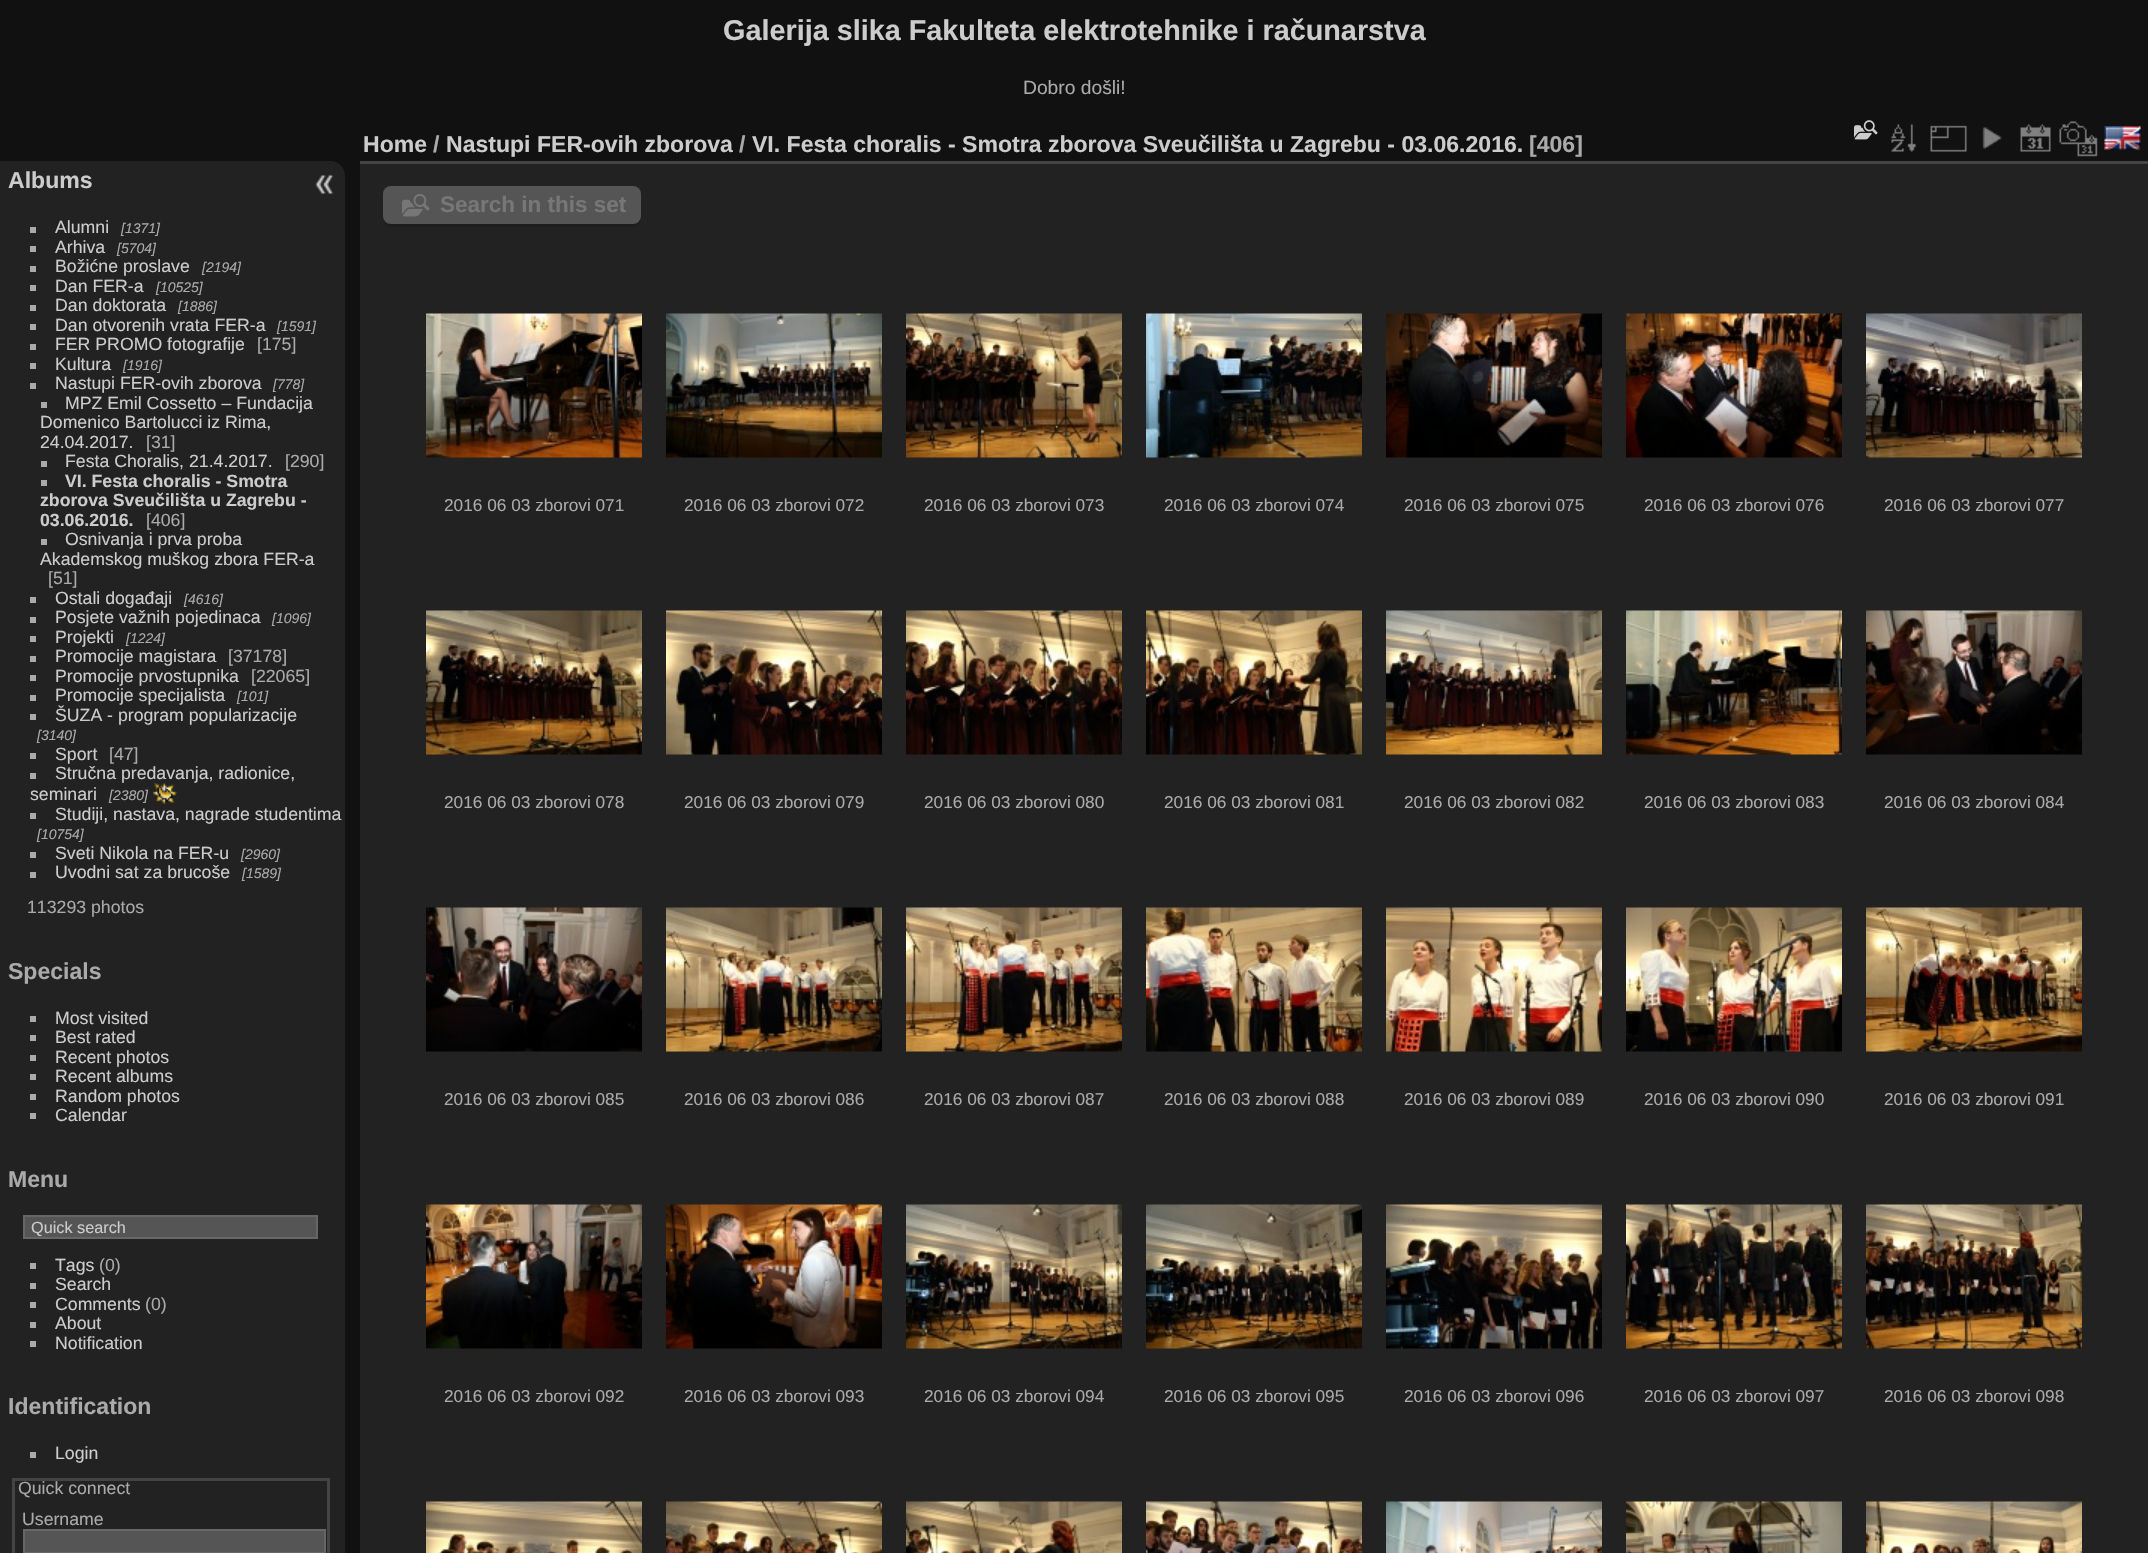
void draw(SkCanvas* canvas) {
	SkPaint fill;
	fill.setAntiAlias(true);
	auto makeFont = [&](const char* family, int weight, float size, bool italic = false) {
		SkFontStyle style(weight, SkFontStyle::kNormal_Width,
			italic ? SkFontStyle::kItalic_Slant : SkFontStyle::kUpright_Slant);
		SkFont result(fontMgr->matchFamilyStyle(family, style), size);
		result.setSubpixel(true);
		return result;
	};
	auto text = [&](const char* s, float x, float y, const SkFont& font) {
		canvas->drawString(s, x, y, font, fill);
	};
	auto box = [&](float l, float t, float r, float b) {
		canvas->drawRect(SkRect::MakeLTRB(l, t, r, b), fill);
	};
	auto roundBox = [&](float l, float t, float r, float b, float radius) {
		canvas->drawRoundRect(SkRect::MakeLTRB(l, t, r, b), radius, radius, fill);
	};
	auto picture = [&](const char* path, float l, float t, float r, float b) {
		auto image = SkImages::DeferredFromEncodedData(SkData::MakeFromFileName(path));
		canvas->drawImageRect(image, SkRect::MakeLTRB(l, t, r, b), SkSamplingOptions());
	};
	canvas->clear(0xFF111111);
	fill.setColor(0xFF222222);
	canvas->drawPath(SkPathBuilder().moveTo(0, 161).lineTo(330, 161).cubicTo(338.5f, 161, 345, 167.5f, 345, 176).lineTo(345, 1553).cubicTo(345, 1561.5f, 338.5f, 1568, 330, 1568).lineTo(0, 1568).close().detach(), fill);
	fill.setColor(0xFFAAAAAA);
	box(30, 227, 36, 233);
	box(30, 246, 36, 252);
	box(30, 266, 36, 272);
	box(30, 285, 36, 291);
	box(30, 305, 36, 311);
	box(30, 324, 36, 330);
	box(30, 344, 36, 350);
	box(30, 363, 36, 369);
	box(30, 383, 36, 389);
	box(41, 402, 47, 408);
	box(41, 461, 47, 467);
	box(41, 480, 47, 486);
	box(41, 539, 47, 545);
	box(30, 597, 36, 603);
	box(30, 617, 36, 623);
	box(30, 636, 36, 642);
	box(30, 656, 36, 662);
	box(30, 675, 36, 681);
	box(30, 695, 36, 701);
	box(30, 714, 36, 720);
	box(30, 753, 36, 759);
	box(30, 773, 36, 779);
	picture("image0.png", 153, 783, 177, 804);
	box(30, 813, 36, 819);
	box(30, 852, 36, 858);
	box(30, 872, 36, 878);
	box(30, 1016, 36, 1022);
	box(30, 1035, 36, 1041);
	box(30, 1055, 36, 1061);
	box(30, 1074, 36, 1080);
	box(30, 1094, 36, 1100);
	box(30, 1113, 36, 1119);
	fill.setColor(0xFF555555);
	canvas->drawRect(SkRect::MakeLTRB(24, 1216, 317, 1238), fill);
	fill.setStyle(SkPaint::kStroke_Style);
	fill.setStrokeWidth(2);
	fill.setColor(0xFF666666);
	canvas->drawRect(SkRect::MakeLTRB(24, 1216, 317, 1238), fill);
	fill.setStyle(SkPaint::kFill_Style);
	fill.setColor(0xFFAAAAAA);
	box(30, 1263, 36, 1269);
	box(30, 1283, 36, 1289);
	box(30, 1302, 36, 1308);
	box(30, 1322, 36, 1328);
	box(30, 1341, 36, 1347);
	box(30, 1452, 36, 1458);
	fill.setStyle(SkPaint::kStroke_Style);
	fill.setStrokeWidth(3);
	fill.setColor(0xFF444444);
	canvas->drawRect(SkRect::MakeLTRB(13.5f, 1479.5f, 328.5f, 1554.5f), fill);
	fill.setStyle(SkPaint::kFill_Style);
	fill.setColor(0xFF555555);
	canvas->drawRect(SkRect::MakeLTRB(24, 1530, 325, 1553), fill);
	fill.setStyle(SkPaint::kStroke_Style);
	fill.setStrokeWidth(2);
	fill.setColor(0xFF666666);
	canvas->drawRect(SkRect::MakeLTRB(24, 1530, 325, 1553), fill);
	fill.setStyle(SkPaint::kFill_Style);
	fill.setColor(0xFF222222);
	box(360, 164, 2148, 1553);
	fill.setColor(0xFF444444);
	box(360, 161, 2148, 164);
	picture("image1.png", 1854, 120, 1878, 140);
	picture("image2.png", 1891, 124, 1916, 152);
	picture("image3.png", 1930, 125, 1967, 152);
	picture("image4.png", 1982, 127, 2002, 149);
	picture("image5.png", 2020, 124, 2051, 152);
	picture("image6.png", 2059, 121, 2098, 157);
	picture("image7.png", 2104, 126, 2141, 150);
	fill.setColor(0xFF1D1D1D);
	canvas->drawPath(SkPathBuilder().moveTo(383, 219).cubicTo(383, 223, 387, 227, 391, 227).lineTo(633, 227).cubicTo(637, 227, 641, 223, 641, 219).lineTo(641, 197).lineTo(640, 194).lineTo(640, 216).cubicTo(640, 220, 637, 224, 633, 224).lineTo(390, 224).cubicTo(387, 224, 384, 222, 383, 219).close().detach(), fill);
	fill.setColor(0xFF555555);
	roundBox(383, 186, 641, 224, 8);
	picture("image8.png", 402, 194, 430, 217);
	picture("image9.png", 426, 313, 642, 458);
	picture("image10.png", 666, 313, 882, 458);
	picture("image11.png", 906, 313, 1122, 458);
	picture("image12.png", 1146, 313, 1362, 458);
	picture("image13.png", 1386, 313, 1602, 458);
	picture("image14.png", 1626, 313, 1842, 458);
	picture("image15.png", 1866, 313, 2082, 458);
	picture("image16.png", 426, 610, 642, 755);
	picture("image17.png", 666, 610, 882, 755);
	picture("image18.png", 906, 610, 1122, 755);
	picture("image19.png", 1146, 610, 1362, 755);
	picture("image20.png", 1386, 610, 1602, 755);
	picture("image21.png", 1626, 610, 1842, 755);
	picture("image22.png", 1866, 610, 2082, 755);
	picture("image23.png", 426, 907, 642, 1052);
	picture("image24.png", 666, 907, 882, 1052);
	picture("image25.png", 906, 907, 1122, 1052);
	picture("image26.png", 1146, 907, 1362, 1052);
	picture("image27.png", 1386, 907, 1602, 1052);
	picture("image28.png", 1626, 907, 1842, 1052);
	picture("image29.png", 1866, 907, 2082, 1052);
	picture("image30.png", 426, 1204, 642, 1349);
	picture("image31.png", 666, 1204, 882, 1349);
	picture("image32.png", 906, 1204, 1122, 1349);
	picture("image33.png", 1146, 1204, 1362, 1349);
	picture("image34.png", 1386, 1204, 1602, 1349);
	picture("image35.png", 1626, 1204, 1842, 1349);
	picture("image36.png", 1866, 1204, 2082, 1349);
	picture("image37.png", 426, 1501, 642, 1553);
	picture("image38.png", 666, 1501, 882, 1553);
	picture("image39.png", 906, 1501, 1122, 1553);
	picture("image40.png", 1146, 1501, 1362, 1553);
	picture("image41.png", 1386, 1501, 1602, 1553);
	picture("image42.png", 1626, 1501, 1842, 1553);
	picture("image43.png", 1866, 1501, 2082, 1553);
	picture("image44.png", 315, 175, 334, 194);
	auto font1 = makeFont("Liberation Sans", 700, 28.8f);
	fill.setColor(0xFFCCCCCC);
	text("Galerija slika Fakulteta elektrotehnike i računarstva", 723, 40, font1);
	auto font2 = makeFont("Liberation Sans", 400, 19.25f);
	fill.setColor(0xFFAAAAAA);
	text("Dobro došli!", 1023, 94, font2);
	auto font3 = makeFont("Liberation Sans", 700, 23.05f);
	fill.setColor(0xFFCCCCCC);
	text("Albums", 8, 188, font3);
	auto font4 = makeFont("Liberation Sans", 400, 17.7f);
	text("Alumni", 55, 233, font4);
	auto font5 = makeFont("Liberation Sans", 400, 14, true);
	fill.setColor(0xFFAAAAAA);
	text("[1371]", 121, 233, font5);
	fill.setColor(0xFFCCCCCC);
	text("Arhiva", 55, 253, font4);
	fill.setColor(0xFFAAAAAA);
	text("[5704]", 117, 253, font5);
	fill.setColor(0xFFCCCCCC);
	text("Božićne proslave", 55, 272, font4);
	fill.setColor(0xFFAAAAAA);
	text("[2194]", 202, 272, font5);
	fill.setColor(0xFFCCCCCC);
	text("Dan FER-a", 55, 292, font4);
	fill.setColor(0xFFAAAAAA);
	text("[10525]", 156, 292, font5);
	fill.setColor(0xFFCCCCCC);
	text("Dan doktorata", 55, 311, font4);
	fill.setColor(0xFFAAAAAA);
	text("[1886]", 178, 311, font5);
	fill.setColor(0xFFCCCCCC);
	text("Dan otvorenih vrata FER-a", 55, 331, font4);
	fill.setColor(0xFFAAAAAA);
	text("[1591]", 277, 331, font5);
	fill.setColor(0xFFCCCCCC);
	text("FER PROMO fotografije", 55, 350, font4);
	fill.setColor(0xFFAAAAAA);
	text("[175]", 257, 350, font4);
	fill.setColor(0xFFCCCCCC);
	text("Kultura", 55, 370, font4);
	fill.setColor(0xFFAAAAAA);
	text("[1916]", 123, 370, font5);
	fill.setColor(0xFFCCCCCC);
	text("Nastupi FER-ovih zborova", 55, 389, font4);
	fill.setColor(0xFFAAAAAA);
	text("[778]", 273, 389, font5);
	fill.setColor(0xFFCCCCCC);
	text("MPZ Emil Cossetto – Fundacija", 65, 409, font4);
	text("Domenico Bartolucci iz Rima,", 40, 428, font4);
	text("24.04.2017.", 40, 448, font4);
	fill.setColor(0xFFAAAAAA);
	text("[31]", 146, 448, font4);
	fill.setColor(0xFFCCCCCC);
	text("Festa Choralis, 21.4.2017.", 65, 467, font4);
	fill.setColor(0xFFAAAAAA);
	text("[290]", 285, 467, font4);
	auto font6 = makeFont("Liberation Sans", 700, 17.7f);
	fill.setColor(0xFFCCCCCC);
	text("VI. Festa choralis - Smotra", 65, 487, font6);
	text("zborova Sveučilišta u Zagrebu -", 40, 506, font6);
	text("03.06.2016.", 40, 526, font6);
	fill.setColor(0xFFAAAAAA);
	text("[406]", 146, 526, font4);
	fill.setColor(0xFFCCCCCC);
	text("Osnivanja i prva proba", 65, 545, font4);
	text("Akademskog muškog zbora FER-a", 40, 565, font4);
	fill.setColor(0xFFAAAAAA);
	text("[51]", 48, 584, font4);
	fill.setColor(0xFFCCCCCC);
	text("Ostali događaji", 55, 604, font4);
	fill.setColor(0xFFAAAAAA);
	text("[4616]", 184, 604, font5);
	fill.setColor(0xFFCCCCCC);
	text("Posjete važnih pojedinaca", 55, 623, font4);
	fill.setColor(0xFFAAAAAA);
	text("[1096]", 272, 623, font5);
	fill.setColor(0xFFCCCCCC);
	text("Projekti", 55, 643, font4);
	fill.setColor(0xFFAAAAAA);
	text("[1224]", 126, 643, font5);
	fill.setColor(0xFFCCCCCC);
	text("Promocije magistara", 55, 662, font4);
	fill.setColor(0xFFAAAAAA);
	text("[37178]", 228, 662, font4);
	fill.setColor(0xFFCCCCCC);
	text("Promocije prvostupnika", 55, 682, font4);
	fill.setColor(0xFFAAAAAA);
	text("[22065]", 251, 682, font4);
	fill.setColor(0xFFCCCCCC);
	text("Promocije specijalista", 55, 701, font4);
	fill.setColor(0xFFAAAAAA);
	text("[101]", 237, 701, font5);
	fill.setColor(0xFFCCCCCC);
	text("ŠUZA - program popularizacije", 55, 721, font4);
	fill.setColor(0xFFAAAAAA);
	text("[3140]", 37, 740, font5);
	fill.setColor(0xFFCCCCCC);
	text("Sport", 55, 760, font4);
	fill.setColor(0xFFAAAAAA);
	text("[47]", 109, 760, font4);
	fill.setColor(0xFFCCCCCC);
	text("Stručna predavanja, radionice,", 55, 779, font4);
	text("seminari", 30, 800, font4);
	fill.setColor(0xFFAAAAAA);
	text("[2380]", 109, 800, font5);
	fill.setColor(0xFFCCCCCC);
	text("Studiji, nastava, nagrade studentima", 55, 820, font4);
	fill.setColor(0xFFAAAAAA);
	text("[10754]", 37, 839, font5);
	fill.setColor(0xFFCCCCCC);
	text("Sveti Nikola na FER-u", 55, 859, font4);
	fill.setColor(0xFFAAAAAA);
	text("[2960]", 241, 859, font5);
	fill.setColor(0xFFCCCCCC);
	text("Uvodni sat za brucoše", 55, 878, font4);
	fill.setColor(0xFFAAAAAA);
	text("[1589]", 242, 878, font5);
	text("113293 photos", 27, 913, font4);
	text("Specials", 8, 979, font3);
	fill.setColor(0xFFCCCCCC);
	text("Most visited", 55, 1024, font4);
	text("Best rated", 55, 1043, font4);
	text("Recent photos", 55, 1063, font4);
	text("Recent albums", 55, 1082, font4);
	text("Random photos", 55, 1102, font4);
	text("Calendar", 55, 1121, font4);
	fill.setColor(0xFFAAAAAA);
	text("Menu", 8, 1187, font3);
	auto font7 = makeFont("Liberation Sans", 400, 16.25f);
	fill.setColor(0xFFCCCCCC);
	text("Quick search", 31, 1233, font7);
	text("Tags", 55, 1271, font4);
	fill.setColor(0xFFAAAAAA);
	text("(0)", 99, 1271, font4);
	fill.setColor(0xFFCCCCCC);
	text("Search", 55, 1290, font4);
	text("Comments", 55, 1310, font4);
	fill.setColor(0xFFAAAAAA);
	text("(0)", 145, 1310, font4);
	fill.setColor(0xFFCCCCCC);
	text("About", 55, 1329, font4);
	text("Notification", 55, 1349, font4);
	fill.setColor(0xFFAAAAAA);
	text("Identification", 8, 1414, font3);
	fill.setColor(0xFFCCCCCC);
	text("Login", 55, 1459, font4);
	fill.setColor(0xFFAAAAAA);
	text("Quick connect", 18, 1494, font4);
	text("Username", 22, 1525, font4);
	fill.setColor(0xFFCCCCCC);
	text("Home", 363, 152, font3);
	fill.setColor(0xFFAAAAAA);
	text("/", 433, 152, font3);
	fill.setColor(0xFFCCCCCC);
	text("Nastupi FER-ovih zborova", 446, 152, font3);
	fill.setColor(0xFFAAAAAA);
	text("/", 739, 152, font3);
	fill.setColor(0xFFCCCCCC);
	text("VI. Festa choralis - Smotra zborova Sveučilišta u Zagrebu - 03.06.2016.", 752, 152, font3);
	fill.setColor(0xFFAAAAAA);
	text("[406]", 1529, 152, font3);
	auto font8 = makeFont("Liberation Sans", 700, 22.5f);
	fill.setColor(0xFF777777);
	text("Search in this set", 440, 212, font8);
	auto font9 = makeFont("Liberation Sans", 400, 17.25f);
	fill.setColor(0xFFAAAAAA);
	text("2016 06 03 zborovi 071", 444, 511, font9);
	text("2016 06 03 zborovi 072", 684, 511, font9);
	text("2016 06 03 zborovi 073", 924, 511, font9);
	text("2016 06 03 zborovi 074", 1164, 511, font9);
	text("2016 06 03 zborovi 075", 1404, 511, font9);
	text("2016 06 03 zborovi 076", 1644, 511, font9);
	text("2016 06 03 zborovi 077", 1884, 511, font9);
	text("2016 06 03 zborovi 078", 444, 808, font9);
	text("2016 06 03 zborovi 079", 684, 808, font9);
	text("2016 06 03 zborovi 080", 924, 808, font9);
	text("2016 06 03 zborovi 081", 1164, 808, font9);
	text("2016 06 03 zborovi 082", 1404, 808, font9);
	text("2016 06 03 zborovi 083", 1644, 808, font9);
	text("2016 06 03 zborovi 084", 1884, 808, font9);
	text("2016 06 03 zborovi 085", 444, 1105, font9);
	text("2016 06 03 zborovi 086", 684, 1105, font9);
	text("2016 06 03 zborovi 087", 924, 1105, font9);
	text("2016 06 03 zborovi 088", 1164, 1105, font9);
	text("2016 06 03 zborovi 089", 1404, 1105, font9);
	text("2016 06 03 zborovi 090", 1644, 1105, font9);
	text("2016 06 03 zborovi 091", 1884, 1105, font9);
	text("2016 06 03 zborovi 092", 444, 1402, font9);
	text("2016 06 03 zborovi 093", 684, 1402, font9);
	text("2016 06 03 zborovi 094", 924, 1402, font9);
	text("2016 06 03 zborovi 095", 1164, 1402, font9);
	text("2016 06 03 zborovi 096", 1404, 1402, font9);
	text("2016 06 03 zborovi 097", 1644, 1402, font9);
	text("2016 06 03 zborovi 098", 1884, 1402, font9);
}
